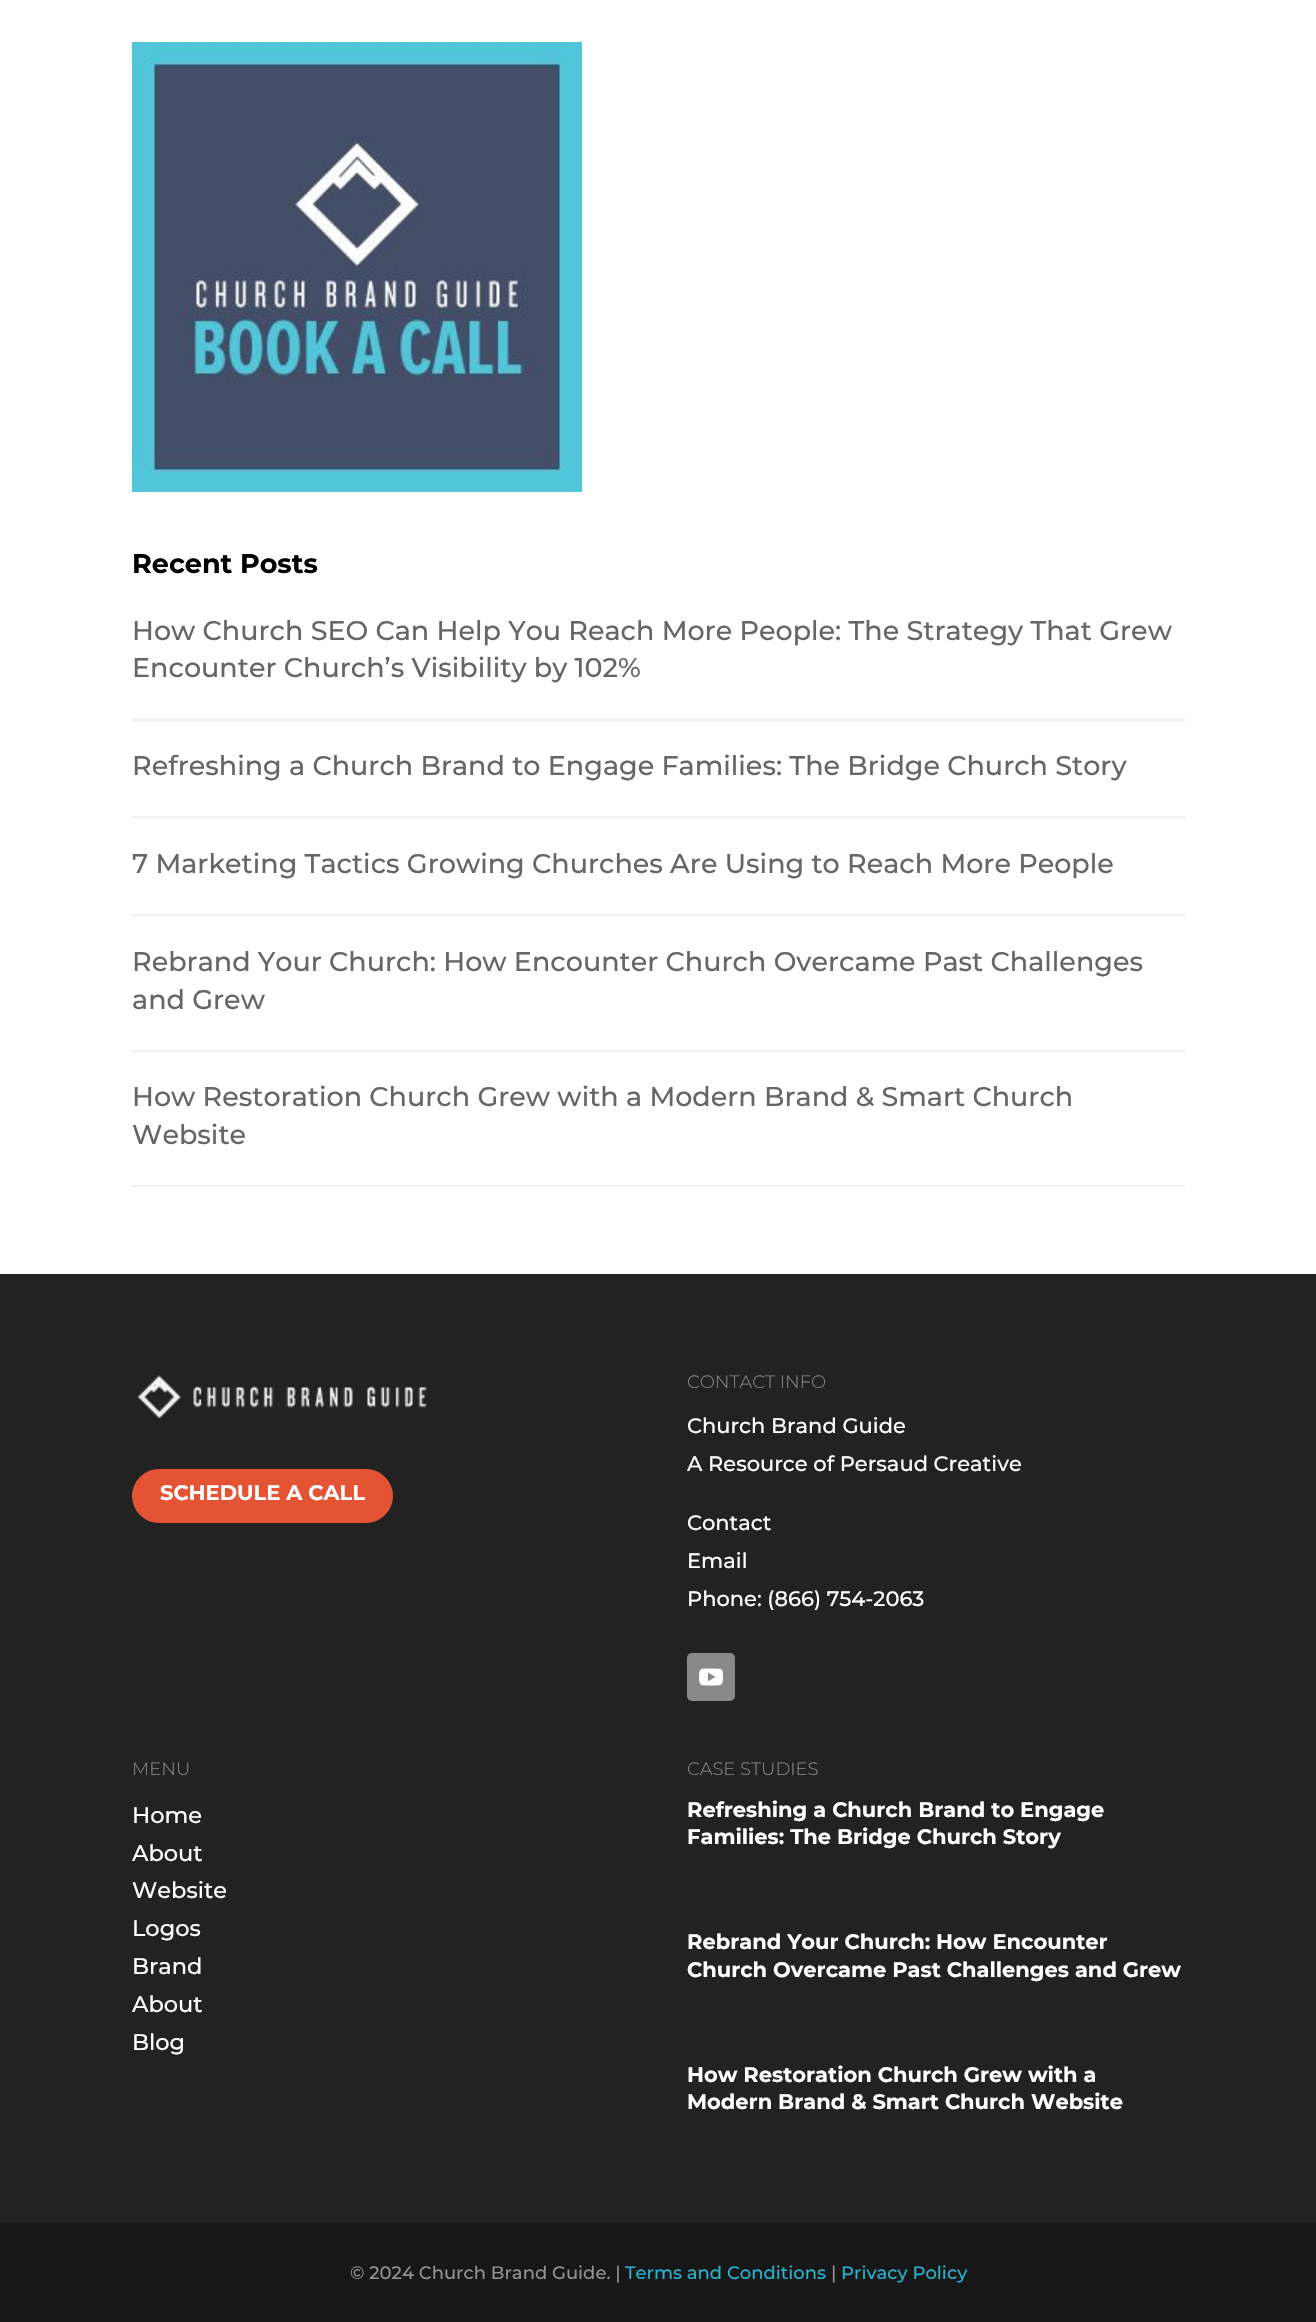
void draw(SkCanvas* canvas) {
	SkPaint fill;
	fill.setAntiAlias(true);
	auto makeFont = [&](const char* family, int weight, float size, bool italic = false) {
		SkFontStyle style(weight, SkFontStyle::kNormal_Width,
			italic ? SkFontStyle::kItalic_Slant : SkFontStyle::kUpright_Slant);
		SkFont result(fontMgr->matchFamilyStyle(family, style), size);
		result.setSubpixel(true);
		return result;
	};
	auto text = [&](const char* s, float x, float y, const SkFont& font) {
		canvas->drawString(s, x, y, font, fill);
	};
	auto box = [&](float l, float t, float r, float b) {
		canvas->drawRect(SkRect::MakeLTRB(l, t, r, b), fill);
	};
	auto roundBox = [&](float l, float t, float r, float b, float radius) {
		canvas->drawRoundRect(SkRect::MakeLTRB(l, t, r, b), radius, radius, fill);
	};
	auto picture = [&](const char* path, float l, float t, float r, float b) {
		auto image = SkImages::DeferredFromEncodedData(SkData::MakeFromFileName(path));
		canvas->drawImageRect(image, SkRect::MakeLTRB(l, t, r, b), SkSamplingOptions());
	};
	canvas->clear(0xFFFFFFFF);
	picture("image0.png", 132, 42, 582, 492);
	fill.setColor(0xFFF1F1F1);
	box(132, 719, 1185, 721);
	box(132, 816, 1185, 818);
	box(132, 914, 1185, 916);
	box(132, 1050, 1185, 1052);
	box(132, 1185, 1185, 1187);
	fill.setColor(0xFF222222);
	box(0, 1274, 1316, 2223);
	picture("image1.png", 137, 1375, 427, 1419);
	fill.setColor(0xFFE55335);
	roundBox(132, 1469, 393, 1523, 27);
	fill.setColor(0xFF898989);
	roundBox(687, 1653, 735, 1701, 5);
	picture("image2.png", 699, 1668, 723, 1686);
	fill.setColor(0xFF171717);
	box(0, 2223, 1316, 2322);
	auto font1 = makeFont("Montserrat", 100, 27);
	fill.setColor(0xFF000000);
	text("Recent Posts", 132, 573, font1);
	auto font2 = makeFont("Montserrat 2", 100, 27);
	fill.setColor(0xFF666666);
	text("How Church SEO Can Help You Reach More People: The Strategy That Grew", 132, 640, font2);
	text("Encounter Church’s Visibility by 102%", 132, 677, font2);
	text("Refreshing a Church Brand to Engage Families: The Bridge Church Story", 132, 775, font2);
	text("7 Marketing Tactics Growing Churches Are Using to Reach More People", 132, 873, font2);
	text("Rebrand Your Church: How Encounter Church Overcame Past Challenges", 132, 971, font2);
	text("and Grew", 132, 1009, font2);
	text("How Restoration Church Grew with a Modern Brand & Smart Church", 132, 1106, font2);
	text("Website", 132, 1144, font2);
	auto font3 = makeFont("Montserrat", 100, 21);
	fill.setColor(0xFFFFFFFF);
	text("SCHEDULE A CALL", 160, 1500, font3);
	auto font4 = makeFont("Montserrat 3", 100, 18);
	fill.setColor(0xFF888888);
	text("CONTACT INFO", 687, 1388, font4);
	auto font5 = makeFont("Montserrat 2", 100, 21);
	fill.setColor(0xFFFFFFFF);
	text("Church Brand Guide", 687, 1433, font5);
	text("A Resource of Persaud Creative", 687, 1471, font5);
	text("Contact", 687, 1530, font5);
	text("Email", 687, 1568, font5);
	text("Phone: (866) 754-2063", 687, 1606, font5);
	fill.setColor(0xFF888888);
	text("MENU", 132, 1775, font4);
	auto font6 = makeFont("Montserrat 2", 100, 22.5f);
	fill.setColor(0xFFFFFFFF);
	text("Home", 132, 1823, font6);
	text("About", 132, 1861, font6);
	text("Website", 132, 1898, font6);
	text("Logos", 132, 1936, font6);
	text("Brand", 132, 1974, font6);
	text("About", 132, 2012, font6);
	text("Blog", 132, 2050, font6);
	fill.setColor(0xFF888888);
	text("CASE STUDIES", 687, 1775, font4);
	fill.setColor(0xFFFFFFFF);
	text("Refreshing a Church Brand to Engage", 687, 1817, font3);
	text("Families: The Bridge Church Story", 687, 1844, font3);
	text("Rebrand Your Church: How Encounter", 687, 1949, font3);
	text("Church Overcame Past Challenges and Grew", 687, 1977, font3);
	text("How Restoration Church Grew with a", 687, 2082, font3);
	text("Modern Brand & Smart Church Website", 687, 2109, font3);
	auto font7 = makeFont("Montserrat 2", 100, 18);
	fill.setColor(0xFF919191);
	text("© 2024 Church Brand Guide. |", 350, 2279, font7);
	fill.setColor(0xFF27B2CE);
	text("Terms and Conditions", 625, 2279, font7);
	fill.setColor(0xFF919191);
	text("|", 831, 2279, font7);
	fill.setColor(0xFF27B2CE);
	text("Privacy Policy", 841, 2279, font7);
}
